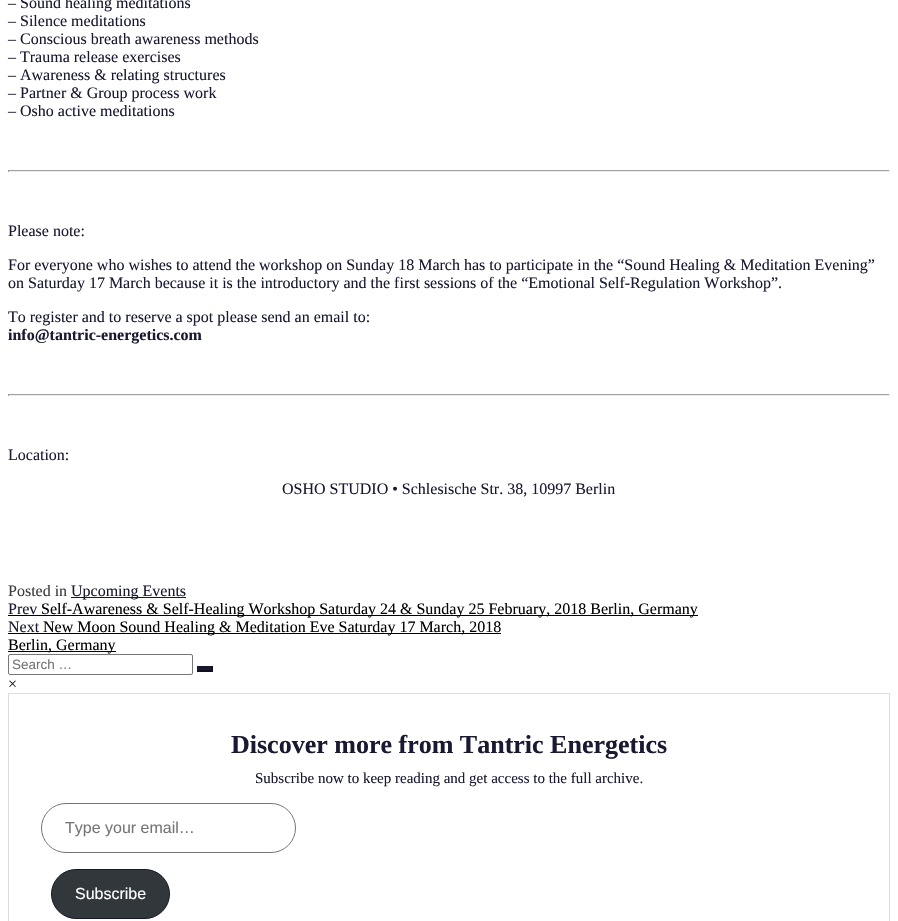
void draw(SkCanvas* canvas) {
	SkPaint fill;
	fill.setAntiAlias(true);
	auto makeFont = [&](const char* family, int weight, float size, bool italic = false) {
		SkFontStyle style(weight, SkFontStyle::kNormal_Width,
			italic ? SkFontStyle::kItalic_Slant : SkFontStyle::kUpright_Slant);
		SkFont result(fontMgr->matchFamilyStyle(family, style), size);
		result.setSubpixel(true);
		return result;
	};
	auto text = [&](const char* s, float x, float y, const SkFont& font) {
		canvas->drawString(s, x, y, font, fill);
	};
	auto box = [&](float l, float t, float r, float b) {
		canvas->drawRect(SkRect::MakeLTRB(l, t, r, b), fill);
	};
	canvas->clear(0xFFFFFFFF);
	fill.setColor(0xFF9F9F9F);
	box(8, 170, 890, 171);
	fill.setColor(0xFFEEEEEE);
	box(889, 170, 890, 172);
	box(8, 171, 890, 172);
	fill.setColor(0xFF9F9F9F);
	box(8, 170, 9, 172);
	box(8, 394, 890, 395);
	fill.setColor(0xFFEEEEEE);
	box(889, 394, 890, 396);
	box(8, 395, 890, 396);
	fill.setColor(0xFF9F9F9F);
	box(8, 394, 9, 396);
	fill.setColor(0xFF191932);
	box(71, 597, 186, 598);
	fill.setColor(0xFF020202);
	box(8, 615, 698, 616);
	box(8, 633, 501, 634);
	box(8, 651, 116, 652);
	fill.setStyle(SkPaint::kStroke_Style);
	fill.setStrokeWidth(1);
	fill.setColor(0xFF767676);
	canvas->drawRoundRect(SkRect::MakeLTRB(8.5f, 654.5f, 192.5f, 674.5f), 1.5f, 1.5f, fill);
	fill.setStyle(SkPaint::kFill_Style);
	fill.setColor(0xFF191932);
	box(197, 666, 213, 672);
	fill.setColor(0xFF16162C);
	canvas->drawPath(SkPathBuilder().moveTo(197, 666).lineTo(213, 666).lineTo(211, 668).lineTo(199, 668).close().detach(), fill);
	fill.setColor(0xFF0F0F1D);
	canvas->drawPath(SkPathBuilder().moveTo(213, 666).lineTo(213, 672).lineTo(211, 670).lineTo(211, 668).close().detach(), fill);
	canvas->drawPath(SkPathBuilder().moveTo(213, 672).lineTo(197, 672).lineTo(199, 670).lineTo(211, 670).close().detach(), fill);
	fill.setColor(0xFF16162C);
	canvas->drawPath(SkPathBuilder().moveTo(197, 672).lineTo(197, 666).lineTo(199, 668).lineTo(199, 670).close().detach(), fill);
	fill.setStyle(SkPaint::kStroke_Style);
	fill.setColor(0xFFDDDDDD);
	canvas->drawRect(SkRect::MakeLTRB(8.5f, 693.5f, 889.5f, 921.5f), fill);
	fill.setColor(0xFF767676);
	canvas->drawRoundRect(SkRect::MakeLTRB(41.5f, 803.5f, 295.5f, 852.5f), 24.5f, 24.5f, fill);
	fill.setStyle(SkPaint::kFill_Style);
	fill.setColor(0xFF32373C);
	canvas->drawRoundRect(SkRect::MakeLTRB(51.5f, 869.5f, 169.5f, 918.5f), 24.5f, 24.5f, fill);
	fill.setStyle(SkPaint::kStroke_Style);
	fill.setColor(0xFF16162C);
	canvas->drawRoundRect(SkRect::MakeLTRB(51.5f, 869.5f, 169.5f, 918.5f), 24.5f, 24.5f, fill);
	auto font1 = makeFont("Liberation Serif", 400, 16);
	fill.setStyle(SkPaint::kFill_Style);
	fill.setColor(0xFF191932);
	text("– Sound healing meditations", 8, 8, font1);
	text("– Silence meditations", 8, 26, font1);
	text("– Conscious breath awareness methods", 8, 44, font1);
	text("– Trauma release exercises", 8, 62, font1);
	text("– Awareness & relating structures", 8, 80, font1);
	text("– Partner & Group process work", 8, 98, font1);
	text("– Osho active meditations", 8, 116, font1);
	text("Please note:", 8, 236, font1);
	text("For everyone who wishes to attend the workshop on Sunday 18 March has to participate in the “Sound Healing & Meditation Evening”", 8, 270, font1);
	text("on Saturday 17 March because it is the introductory and the first sessions of the “Emotional Self-Regulation Workshop”.", 8, 288, font1);
	text("To register and to reserve a spot please send an email to:", 8, 322, font1);
	auto font2 = makeFont("Liberation Serif", 700, 16);
	text("info@tantric-energetics.com", 8, 340, font2);
	text("Location:", 8, 460, font1);
	text("OSHO STUDIO • Schlesische Str. 38, 10997 Berlin", 282, 494, font1);
	fill.setColor(0xFF3D3D3D);
	text("Posted in", 8, 596, font1);
	fill.setColor(0xFF191932);
	text("Upcoming Events", 71, 596, font1);
	text("Prev", 8, 614, font1);
	fill.setColor(0xFF020202);
	text("Self-Awareness & Self-Healing Workshop Saturday 24 & Sunday 25 February, 2018 Berlin, Germany", 41, 614, font1);
	fill.setColor(0xFF191932);
	text("Next", 8, 632, font1);
	fill.setColor(0xFF020202);
	text("New Moon Sound Healing & Meditation Eve Saturday 17 March, 2018", 43, 632, font1);
	text("Berlin, Germany", 8, 650, font1);
	auto font3 = makeFont("Liberation Sans", 400, 13.5f);
	fill.setColor(0xFF757575);
	text("Search …", 12, 669, font3);
	fill.setColor(0xFF191932);
	text("×", 8, 689, font1);
	auto font4 = makeFont("Liberation Serif", 700, 26);
	text("Discover more from Tantric Energetics", 231, 753, font4);
	auto font5 = makeFont("Liberation Serif", 400, 15);
	text("Subscribe now to keep reading and get access to the full archive.", 255, 783, font5);
	auto font6 = makeFont("Liberation Sans", 400, 16);
	fill.setColor(0xFF757575);
	text("Type your email…", 65, 833, font6);
	fill.setColor(0xFFFFFFFF);
	text("Subscribe", 75, 899, font6);
}
